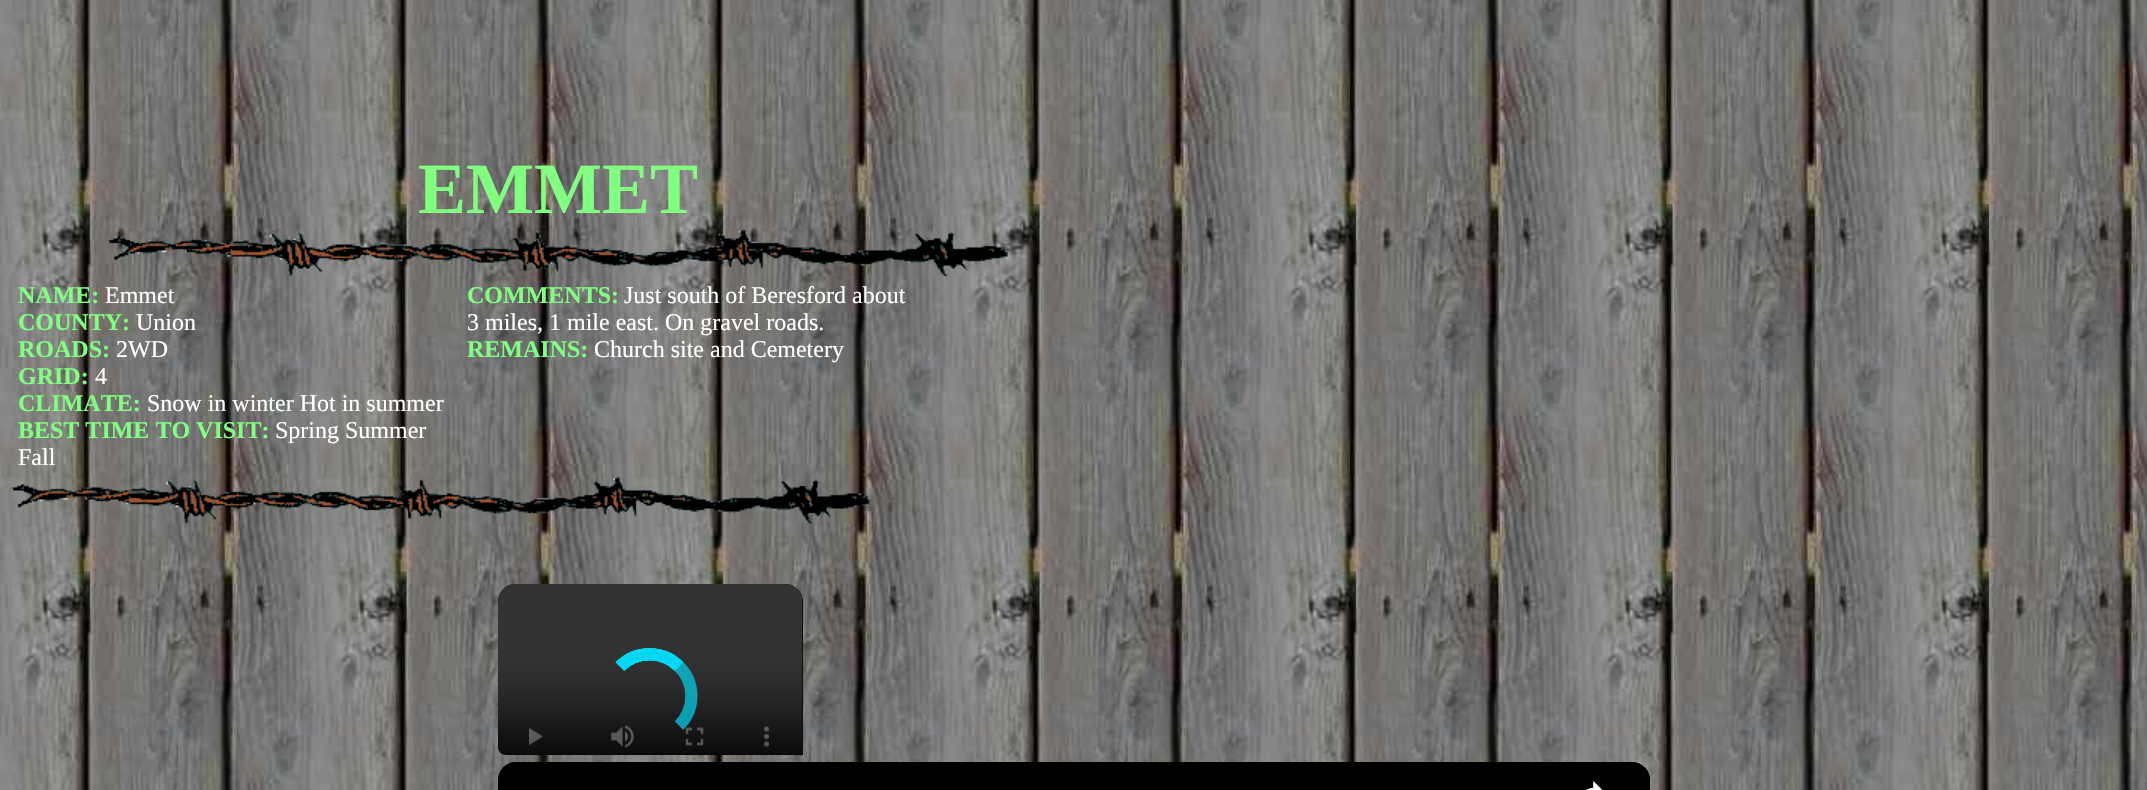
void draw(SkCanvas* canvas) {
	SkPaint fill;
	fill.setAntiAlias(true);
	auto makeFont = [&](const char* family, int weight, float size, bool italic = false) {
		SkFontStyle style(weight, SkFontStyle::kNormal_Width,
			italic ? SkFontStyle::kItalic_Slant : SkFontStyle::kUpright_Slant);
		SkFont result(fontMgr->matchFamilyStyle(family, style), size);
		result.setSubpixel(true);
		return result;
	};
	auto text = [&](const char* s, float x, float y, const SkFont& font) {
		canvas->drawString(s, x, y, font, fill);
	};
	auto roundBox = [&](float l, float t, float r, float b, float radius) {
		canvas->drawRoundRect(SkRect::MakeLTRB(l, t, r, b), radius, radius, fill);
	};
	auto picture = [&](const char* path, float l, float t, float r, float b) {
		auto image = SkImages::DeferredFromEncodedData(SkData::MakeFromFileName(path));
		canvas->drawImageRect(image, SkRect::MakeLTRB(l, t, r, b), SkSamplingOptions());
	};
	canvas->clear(0xFFFFFFFF);
	picture("image0.png", 0, 0, 2147, 790);
	picture("image1.png", 108, 229, 1008, 276);
	picture("image2.png", 12, 477, 870, 524);
	fill.setColor(0x66FFFFFF);
	canvas->drawCircle(788, 596, 12, fill);
	canvas->save();
	canvas->clipPath(SkPathBuilder().moveTo(506, 584).lineTo(1642, 584).cubicTo(1646.5f, 584, 1650, 587.5f, 1650, 592).lineTo(1650, 747).cubicTo(1650, 751.5f, 1646.5f, 755, 1642, 755).lineTo(506, 755).cubicTo(501.5f, 755, 498, 751.5f, 498, 747).lineTo(498, 592).cubicTo(498, 587.5f, 501.5f, 584, 506, 584).close().detach(), true);
	fill.setColor(0xFF000000);
	canvas->drawPath(SkPathBuilder().moveTo(516, 584).lineTo(785, 584).cubicTo(795, 584, 803, 592, 803, 602).lineTo(803, 755).lineTo(506, 755).cubicTo(501.5f, 755, 498, 751.5f, 498, 747).lineTo(498, 602).cubicTo(498, 592, 506, 584, 516, 584).close().detach(), fill);
	canvas->restore();
	picture("image3.png", 498, 584, 803, 755);
	fill.setStyle(SkPaint::kStroke_Style);
	fill.setStrokeWidth(12);
	fill.setColor(0xFF03D8F3);
	canvas->drawPath(SkPathBuilder().moveTo(620, 666.5f).cubicTo(636, 650, 663, 650, 679, 666.5f).detach(), fill);
	fill.setColor(0x4003D8F3);
	canvas->drawPath(SkPathBuilder().moveTo(679, 666.5f).cubicTo(695.5f, 682.5f, 695.5f, 709.5f, 679, 725.5f).detach(), fill);
	fill.setColor(0xFF03D8F3);
	canvas->drawPath(SkPathBuilder().moveTo(620, 666.5f).cubicTo(636, 650, 663, 650, 679, 666.5f).detach(), fill);
	fill.setColor(0x4003D8F3);
	canvas->drawPath(SkPathBuilder().moveTo(679, 666.5f).cubicTo(695.5f, 682.5f, 695.5f, 709.5f, 679, 725.5f).detach(), fill);
	fill.setColor(0xFF03D8F3);
	canvas->drawPath(SkPathBuilder().moveTo(620, 666.5f).cubicTo(636, 650, 663, 650, 679, 666.5f).detach(), fill);
	fill.setColor(0x4003D8F3);
	canvas->drawPath(SkPathBuilder().moveTo(679, 666.5f).cubicTo(695.5f, 682.5f, 695.5f, 709.5f, 679, 725.5f).detach(), fill);
	fill.setColor(0xFF03D8F3);
	canvas->drawPath(SkPathBuilder().moveTo(620, 666.5f).cubicTo(636, 650, 663, 650, 679, 666.5f).detach(), fill);
	fill.setColor(0x4003D8F3);
	canvas->drawPath(SkPathBuilder().moveTo(679, 666.5f).cubicTo(695.5f, 682.5f, 695.5f, 709.5f, 679, 725.5f).detach(), fill);
	fill.setStyle(SkPaint::kFill_Style);
	fill.setColor(0x66FFFFFF);
	canvas->drawCircle(1635, 774, 12, fill);
	fill.setColor(0xFF000000);
	roundBox(498, 762, 1650, 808, 18);
	{
		const SkColor colors[] = {0x99000000, 0x00000000, 0x00000000, 0xCC000000};
		const float stops[] = {0, 0.16f, 0.84f, 1};
		const SkPoint ends[] = {{1074, 762}, {1074, 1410}};
		fill.setShader(SkGradientShader::MakeLinear(ends, colors, stops, 4, SkTileMode::kClamp));
		fill.setAlpha(255);
	}
	roundBox(498, 762, 1650, 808, 18);
	picture("image4.png", 1586, 781, 1603, 790);
	auto font1 = makeFont("Liberation Serif", 700, 72);
	fill.setShader(nullptr);
	fill.setColor(0xFF80FF80);
	text("EMMET", 418, 213, font1);
	auto font2 = makeFont("Liberation Serif", 700, 24);
	text("NAME:", 18, 303, font2);
	auto font3 = makeFont("Liberation Serif", 400, 24);
	fill.setColor(0xFFFFFFFF);
	text("Emmet", 105, 303, font3);
	fill.setColor(0xFF80FF80);
	text("COUNTY:", 18, 330, font2);
	fill.setColor(0xFFFFFFFF);
	text("Union", 136, 330, font3);
	fill.setColor(0xFF80FF80);
	text("ROADS:", 18, 357, font2);
	fill.setColor(0xFFFFFFFF);
	text("2WD", 116, 357, font3);
	fill.setColor(0xFF80FF80);
	text("GRID:", 18, 384, font2);
	fill.setColor(0xFFFFFFFF);
	text("4", 95, 384, font3);
	fill.setColor(0xFF80FF80);
	text("CLIMATE:", 18, 411, font2);
	fill.setColor(0xFFFFFFFF);
	text("Snow in winter Hot in summer", 147, 411, font3);
	fill.setColor(0xFF80FF80);
	text("BEST TIME TO VISIT:", 18, 438, font2);
	fill.setColor(0xFFFFFFFF);
	text("Spring Summer", 275, 438, font3);
	text("Fall", 18, 465, font3);
	fill.setColor(0xFF80FF80);
	text("COMMENTS:", 467, 303, font2);
	fill.setColor(0xFFFFFFFF);
	text("Just south of Beresford about", 624, 303, font3);
	text("3 miles, 1 mile east. On gravel roads.", 467, 330, font3);
	fill.setColor(0xFF80FF80);
	text("REMAINS:", 467, 357, font2);
	fill.setColor(0xFFFFFFFF);
	text("Church site and Cemetery", 594, 357, font3);
}
